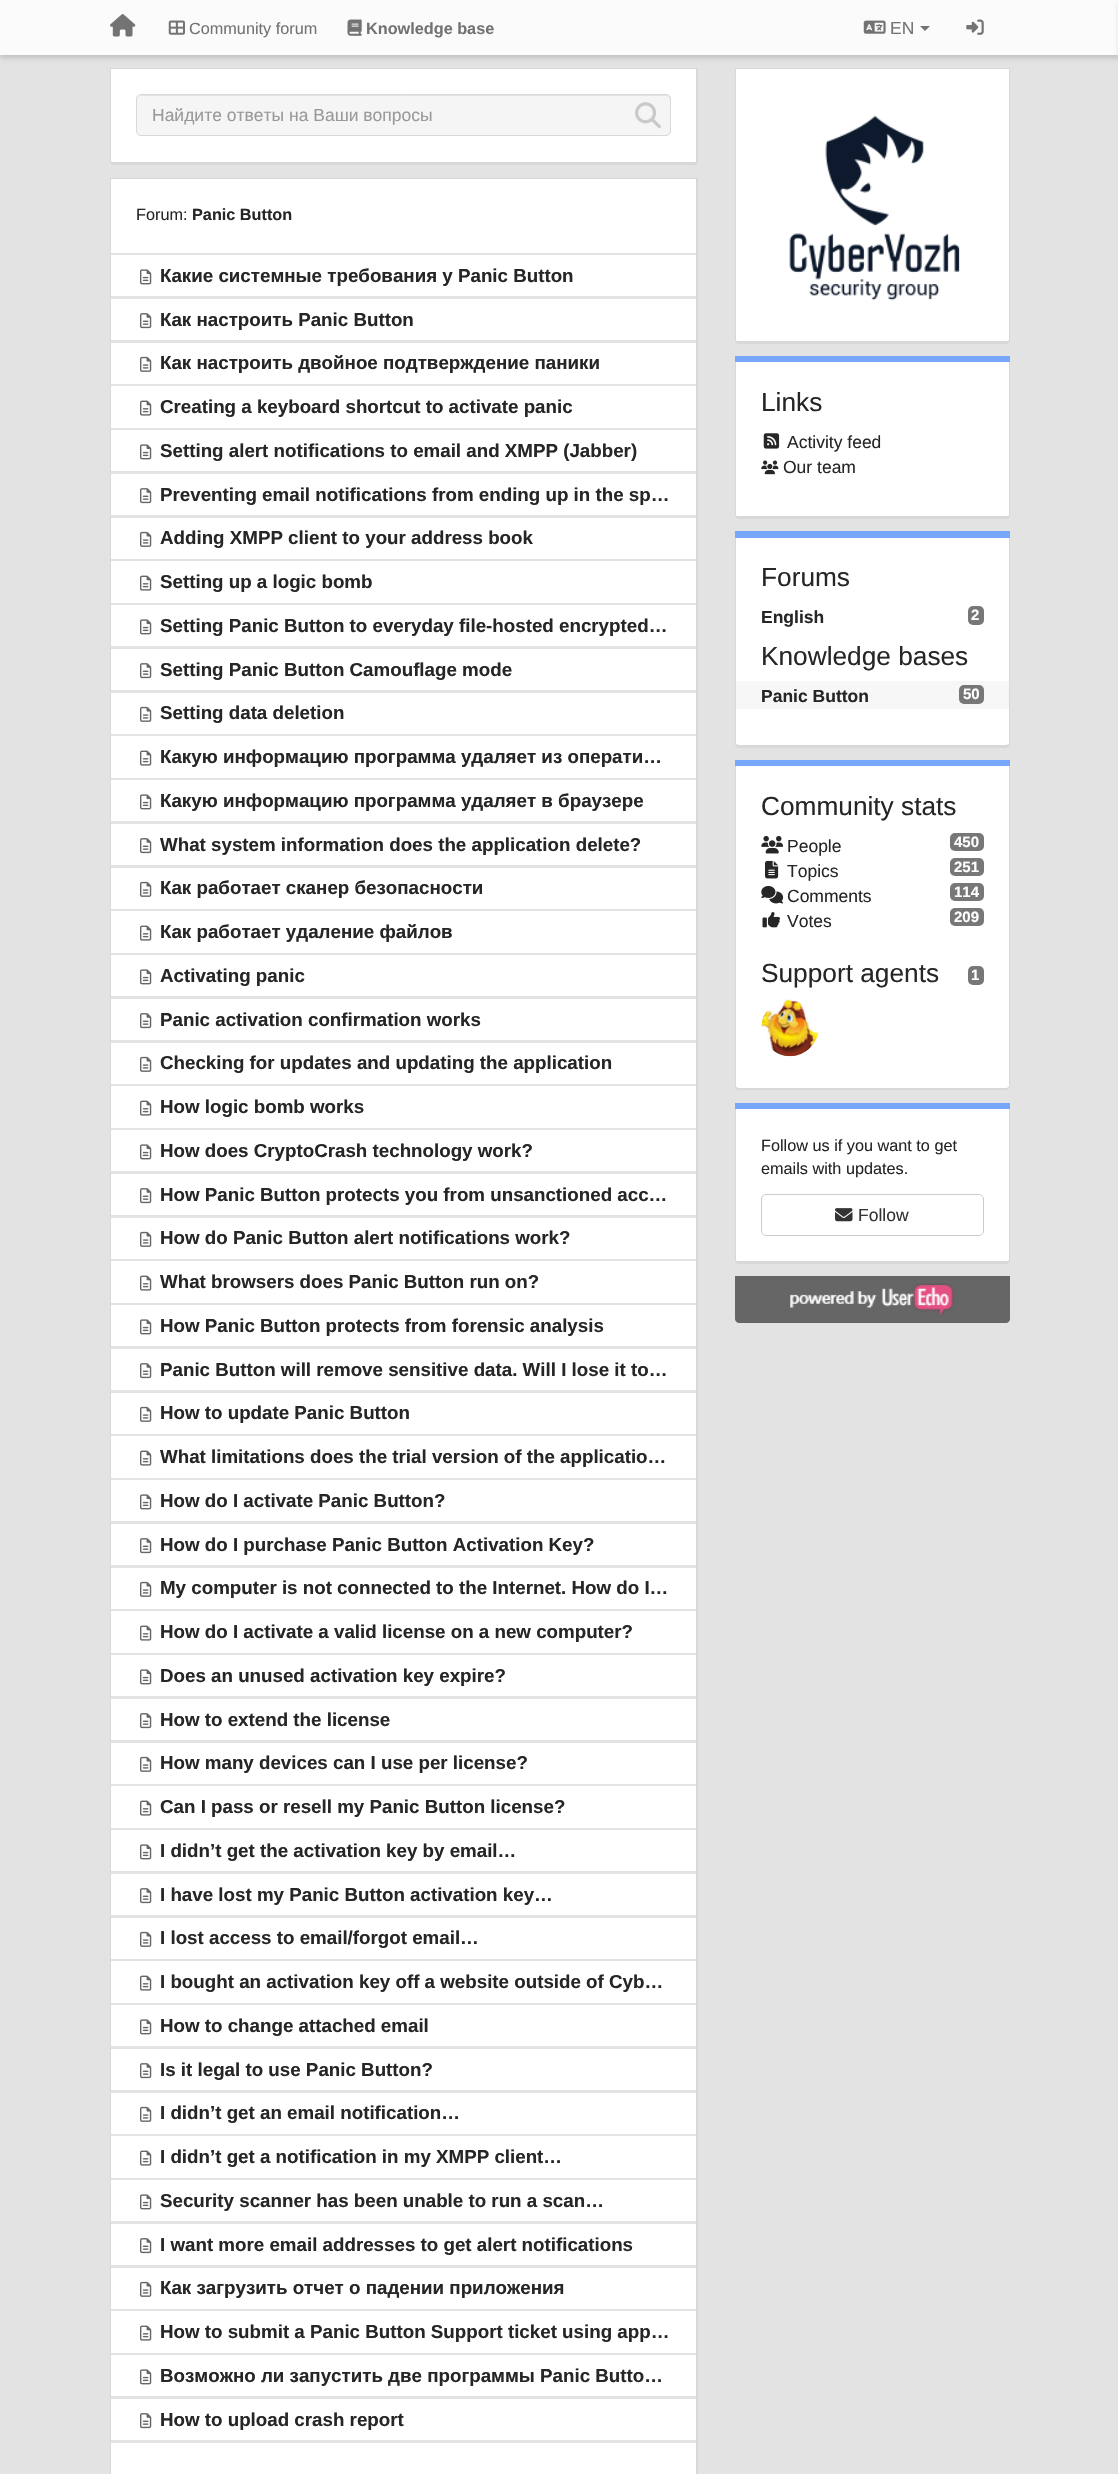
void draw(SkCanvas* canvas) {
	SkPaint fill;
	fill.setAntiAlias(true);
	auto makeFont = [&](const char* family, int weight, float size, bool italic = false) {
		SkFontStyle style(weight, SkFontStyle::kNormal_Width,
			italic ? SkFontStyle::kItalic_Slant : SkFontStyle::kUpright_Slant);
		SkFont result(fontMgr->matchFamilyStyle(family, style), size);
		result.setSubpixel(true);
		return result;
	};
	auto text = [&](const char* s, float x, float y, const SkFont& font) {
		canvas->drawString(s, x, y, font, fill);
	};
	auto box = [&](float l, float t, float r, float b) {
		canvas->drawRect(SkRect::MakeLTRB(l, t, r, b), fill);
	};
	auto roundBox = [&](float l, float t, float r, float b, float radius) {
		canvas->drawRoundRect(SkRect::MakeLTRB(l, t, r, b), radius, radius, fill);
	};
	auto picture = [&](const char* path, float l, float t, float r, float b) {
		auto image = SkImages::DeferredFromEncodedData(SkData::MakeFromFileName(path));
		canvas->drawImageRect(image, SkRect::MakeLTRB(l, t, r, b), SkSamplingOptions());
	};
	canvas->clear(0xFFE3E3E3);
	fill.setColor(0x26000000);
	fill.setMaskFilter(SkMaskFilter::MakeBlur(kNormal_SkBlurStyle, 2.5f));
	canvas->drawRect(SkRect::MakeLTRB(0, 3, 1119, 58), fill);
	fill.setMaskFilter(nullptr);
	fill.setColor(0xFFFBFBFB);
	box(0, 0, 1118, 55);
	picture("image0.png", 110, 14, 136, 37);
	picture("image1.png", 168, 20, 185, 35);
	picture("image2.png", 347, 19, 362, 36);
	picture("image3.png", 863, 20, 886, 34);
	fill.setColor(0xFF737373);
	canvas->drawPath(SkPathBuilder().moveTo(920, 26).lineTo(930, 26).lineTo(925, 31).close().detach(), fill);
	picture("image4.png", 966, 19, 984, 35);
	fill.setColor(0x26000000);
	fill.setMaskFilter(SkMaskFilter::MakeBlur(kNormal_SkBlurStyle, 2.5f));
	canvas->drawRect(SkRect::MakeLTRB(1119, 3, 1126, 58), fill);
	fill.setMaskFilter(nullptr);
	fill.setColor(0xFFD8D8D8);
	box(110, 68, 698, 69);
	fill.setColor(0xFFFFFFFF);
	canvas->drawPath(SkPathBuilder().moveTo(111, 69).lineTo(696, 69).lineTo(696, 161).cubicTo(696, 162, 695, 162, 694, 162).lineTo(114, 162).cubicTo(112, 162, 111, 162, 111, 161).close().detach(), fill);
	fill.setColor(0xFFD8D8D8);
	canvas->drawPath(SkPathBuilder(SkPathFillType::kEvenOdd).moveTo(110, 69).lineTo(698, 69).lineTo(698, 161).cubicTo(698, 163, 696, 165, 694, 165).lineTo(114, 165).cubicTo(112, 165, 110, 163, 110, 161).close().moveTo(111, 69).lineTo(696, 69).lineTo(696, 161).cubicTo(696, 162, 695, 162, 694, 162).lineTo(114, 162).cubicTo(112, 162, 111, 162, 111, 161).close().detach(), fill);
	fill.setColor(0xFFF5F5F5);
	roundBox(136, 94, 671, 136, 5);
	fill.setColor(0xFFE3E3E3);
	canvas->drawPath(SkPathBuilder().moveTo(141, 96).lineTo(666, 96).cubicTo(668, 96, 670, 98, 670, 100).lineTo(670, 99).cubicTo(670, 97, 668, 95, 666, 95).lineTo(142, 95).cubicTo(140, 95, 138, 97, 138, 99).lineTo(138, 100).cubicTo(138, 98, 139, 96, 141, 96).close().detach(), fill);
	fill.setStyle(SkPaint::kStroke_Style);
	fill.setStrokeWidth(1);
	fill.setColor(0xFFD8D8D8);
	canvas->drawRoundRect(SkRect::MakeLTRB(136.5f, 94.5f, 670.5f, 135.5f), 4.5f, 4.5f, fill);
	picture("image5.png", 635, 102, 661, 129);
	fill.setStyle(SkPaint::kFill_Style);
	box(110, 178, 698, 179);
	canvas->drawPath(SkPathBuilder(SkPathFillType::kEvenOdd).moveTo(110, 179).lineTo(698, 179).lineTo(698, 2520).cubicTo(698, 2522, 696, 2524, 694, 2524).lineTo(114, 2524).cubicTo(112, 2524, 110, 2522, 110, 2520).close().moveTo(111, 179).lineTo(696, 179).lineTo(696, 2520).cubicTo(696, 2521, 695, 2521, 694, 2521).lineTo(114, 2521).cubicTo(112, 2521, 111, 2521, 111, 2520).close().detach(), fill);
	fill.setColor(0xFFFFFFFF);
	box(111, 179, 696, 253);
	box(111, 255, 696, 296);
	picture("image6.png", 140, 269, 152, 285);
	box(111, 299, 696, 340);
	picture("image7.png", 140, 313, 152, 329);
	box(111, 343, 696, 384);
	picture("image8.png", 140, 356, 152, 372);
	box(111, 386, 696, 428);
	picture("image9.png", 140, 400, 152, 416);
	box(111, 430, 696, 471);
	picture("image6.png", 140, 444, 152, 460);
	box(111, 474, 696, 515);
	picture("image7.png", 140, 488, 152, 504);
	box(111, 518, 696, 559);
	picture("image8.png", 140, 531, 152, 547);
	box(111, 561, 696, 603);
	picture("image9.png", 140, 575, 152, 591);
	box(111, 605, 696, 646);
	picture("image6.png", 140, 619, 152, 635);
	box(111, 649, 696, 690);
	picture("image7.png", 140, 663, 152, 679);
	box(111, 693, 696, 734);
	picture("image8.png", 140, 706, 152, 722);
	box(111, 736, 696, 778);
	picture("image9.png", 140, 750, 152, 766);
	box(111, 780, 696, 821);
	picture("image6.png", 140, 794, 152, 810);
	box(111, 824, 696, 865);
	picture("image7.png", 140, 838, 152, 854);
	box(111, 868, 696, 909);
	picture("image8.png", 140, 881, 152, 897);
	box(111, 911, 696, 953);
	picture("image9.png", 140, 925, 152, 941);
	box(111, 955, 696, 996);
	picture("image6.png", 140, 969, 152, 985);
	box(111, 999, 696, 1040);
	picture("image7.png", 140, 1013, 152, 1029);
	box(111, 1043, 696, 1084);
	picture("image8.png", 140, 1056, 152, 1072);
	box(111, 1086, 696, 1128);
	picture("image9.png", 140, 1100, 152, 1116);
	box(111, 1130, 696, 1171);
	picture("image6.png", 140, 1144, 152, 1160);
	box(111, 1174, 696, 1215);
	picture("image7.png", 140, 1188, 152, 1204);
	box(111, 1218, 696, 1259);
	picture("image8.png", 140, 1231, 152, 1247);
	box(111, 1261, 696, 1303);
	picture("image9.png", 140, 1275, 152, 1291);
	box(111, 1305, 696, 1346);
	picture("image6.png", 140, 1319, 152, 1335);
	box(111, 1349, 696, 1390);
	picture("image7.png", 140, 1363, 152, 1379);
	box(111, 1393, 696, 1434);
	picture("image8.png", 140, 1406, 152, 1422);
	box(111, 1436, 696, 1478);
	picture("image9.png", 140, 1450, 152, 1466);
	box(111, 1480, 696, 1521);
	picture("image6.png", 140, 1494, 152, 1510);
	box(111, 1524, 696, 1565);
	picture("image7.png", 140, 1538, 152, 1554);
	box(111, 1568, 696, 1609);
	picture("image8.png", 140, 1581, 152, 1597);
	box(111, 1611, 696, 1653);
	picture("image9.png", 140, 1625, 152, 1641);
	box(111, 1655, 696, 1696);
	picture("image6.png", 140, 1669, 152, 1685);
	box(111, 1699, 696, 1740);
	picture("image7.png", 140, 1713, 152, 1729);
	box(111, 1743, 696, 1784);
	picture("image8.png", 140, 1756, 152, 1772);
	box(111, 1786, 696, 1828);
	picture("image9.png", 140, 1800, 152, 1816);
	box(111, 1830, 696, 1871);
	picture("image6.png", 140, 1844, 152, 1860);
	box(111, 1874, 696, 1915);
	picture("image7.png", 140, 1888, 152, 1904);
	box(111, 1918, 696, 1959);
	picture("image8.png", 140, 1931, 152, 1947);
	box(111, 1961, 696, 2003);
	picture("image9.png", 140, 1975, 152, 1991);
	box(111, 2005, 696, 2046);
	picture("image6.png", 140, 2019, 152, 2035);
	box(111, 2049, 696, 2090);
	picture("image7.png", 140, 2063, 152, 2079);
	box(111, 2093, 696, 2134);
	picture("image8.png", 140, 2106, 152, 2122);
	box(111, 2136, 696, 2178);
	picture("image9.png", 140, 2150, 152, 2166);
	box(111, 2180, 696, 2221);
	picture("image6.png", 140, 2194, 152, 2210);
	box(111, 2224, 696, 2265);
	picture("image7.png", 140, 2238, 152, 2254);
	box(111, 2268, 696, 2309);
	picture("image8.png", 140, 2281, 152, 2297);
	box(111, 2311, 696, 2353);
	picture("image9.png", 140, 2325, 152, 2341);
	box(111, 2355, 696, 2396);
	picture("image6.png", 140, 2369, 152, 2385);
	box(111, 2399, 696, 2440);
	picture("image7.png", 140, 2413, 152, 2429);
	box(111, 2443, 696, 2474);
	fill.setColor(0xFFD8D8D8);
	box(735, 68, 1010, 69);
	fill.setColor(0xFFFFFFFF);
	canvas->drawPath(SkPathBuilder().moveTo(736, 69).lineTo(1009, 69).lineTo(1009, 340).cubicTo(1009, 341, 1008, 341, 1006, 341).lineTo(739, 341).cubicTo(737, 341, 736, 341, 736, 340).close().detach(), fill);
	fill.setColor(0xFFD8D8D8);
	canvas->drawPath(SkPathBuilder(SkPathFillType::kEvenOdd).moveTo(735, 69).lineTo(1010, 69).lineTo(1010, 340).cubicTo(1010, 342, 1008, 344, 1006, 344).lineTo(739, 344).cubicTo(737, 344, 735, 342, 735, 340).close().moveTo(736, 69).lineTo(1009, 69).lineTo(1009, 340).cubicTo(1009, 341, 1008, 341, 1006, 341).lineTo(739, 341).cubicTo(737, 341, 736, 341, 736, 340).close().detach(), fill);
	picture("image10.png", 789, 115, 960, 301);
	fill.setColor(0xFF76A7FA);
	box(735, 356, 1010, 362);
	fill.setColor(0xFFFFFFFF);
	canvas->drawPath(SkPathBuilder().moveTo(736, 362).lineTo(1009, 362).lineTo(1009, 515).cubicTo(1009, 516, 1008, 516, 1006, 516).lineTo(739, 516).cubicTo(737, 516, 736, 516, 736, 515).close().detach(), fill);
	fill.setColor(0xFFD8D8D8);
	canvas->drawPath(SkPathBuilder(SkPathFillType::kEvenOdd).moveTo(735, 362).lineTo(1010, 362).lineTo(1010, 515).cubicTo(1010, 517, 1008, 519, 1006, 519).lineTo(739, 519).cubicTo(737, 519, 735, 517, 735, 515).close().moveTo(736, 362).lineTo(1009, 362).lineTo(1009, 515).cubicTo(1009, 516, 1008, 516, 1006, 516).lineTo(739, 516).cubicTo(737, 516, 736, 516, 736, 515).close().detach(), fill);
	picture("image11.png", 763, 433, 780, 449);
	picture("image12.png", 761, 460, 779, 475);
	fill.setColor(0xFF76A7FA);
	box(735, 531, 1010, 538);
	fill.setColor(0xFFFFFFFF);
	canvas->drawPath(SkPathBuilder().moveTo(736, 538).lineTo(1009, 538).lineTo(1009, 744).cubicTo(1009, 744, 1008, 745, 1006, 745).lineTo(739, 745).cubicTo(737, 745, 736, 744, 736, 744).close().detach(), fill);
	fill.setColor(0xFFD8D8D8);
	canvas->drawPath(SkPathBuilder(SkPathFillType::kEvenOdd).moveTo(735, 538).lineTo(1010, 538).lineTo(1010, 744).cubicTo(1010, 746, 1008, 748, 1006, 748).lineTo(739, 748).cubicTo(737, 748, 735, 746, 735, 744).close().moveTo(736, 538).lineTo(1009, 538).lineTo(1009, 744).cubicTo(1009, 744, 1008, 745, 1006, 745).lineTo(739, 745).cubicTo(737, 745, 736, 744, 736, 744).close().detach(), fill);
	fill.setColor(0xFF777777);
	roundBox(968, 606, 984, 625, 5);
	fill.setColor(0xFFF7F7F7);
	box(736, 681, 1009, 709);
	fill.setColor(0xFF777777);
	roundBox(959, 685, 984, 704, 5);
	fill.setColor(0xFF76A7FA);
	box(735, 760, 1010, 766);
	fill.setColor(0xFFFFFFFF);
	canvas->drawPath(SkPathBuilder().moveTo(736, 766).lineTo(1009, 766).lineTo(1009, 1086).cubicTo(1009, 1087, 1008, 1088, 1006, 1088).lineTo(739, 1088).cubicTo(737, 1088, 736, 1087, 736, 1086).close().detach(), fill);
	fill.setColor(0xFFD8D8D8);
	canvas->drawPath(SkPathBuilder(SkPathFillType::kEvenOdd).moveTo(735, 766).lineTo(1010, 766).lineTo(1010, 1086).cubicTo(1010, 1088, 1008, 1090, 1006, 1090).lineTo(739, 1090).cubicTo(737, 1090, 735, 1088, 735, 1086).close().moveTo(736, 766).lineTo(1009, 766).lineTo(1009, 1086).cubicTo(1009, 1087, 1008, 1088, 1006, 1088).lineTo(739, 1088).cubicTo(737, 1088, 736, 1087, 736, 1086).close().detach(), fill);
	picture("image13.png", 761, 835, 784, 854);
	fill.setColor(0xFF777777);
	roundBox(950, 833, 984, 851, 5);
	picture("image14.png", 765, 860, 779, 879);
	roundBox(950, 858, 984, 876, 5);
	picture("image15.png", 761, 885, 784, 904);
	roundBox(950, 883, 984, 901, 5);
	picture("image16.png", 762, 912, 780, 928);
	roundBox(950, 908, 984, 926, 5);
	roundBox(968, 966, 984, 985, 5);
	picture("image17.png", 761, 999, 819, 1057);
	fill.setColor(0xFF76A7FA);
	box(735, 1103, 1010, 1109);
	fill.setColor(0xFFFFFFFF);
	canvas->drawPath(SkPathBuilder().moveTo(736, 1109).lineTo(1009, 1109).lineTo(1009, 1260).cubicTo(1009, 1261, 1008, 1261, 1006, 1261).lineTo(739, 1261).cubicTo(737, 1261, 736, 1261, 736, 1260).close().detach(), fill);
	fill.setColor(0xFFD8D8D8);
	canvas->drawPath(SkPathBuilder(SkPathFillType::kEvenOdd).moveTo(735, 1109).lineTo(1010, 1109).lineTo(1010, 1260).cubicTo(1010, 1262, 1008, 1264, 1006, 1264).lineTo(739, 1264).cubicTo(737, 1264, 735, 1262, 735, 1260).close().moveTo(736, 1109).lineTo(1009, 1109).lineTo(1009, 1260).cubicTo(1009, 1261, 1008, 1261, 1006, 1261).lineTo(739, 1261).cubicTo(737, 1261, 736, 1261, 736, 1260).close().detach(), fill);
	fill.setStyle(SkPaint::kStroke_Style);
	fill.setColor(0xFFCCCCCC);
	canvas->drawRoundRect(SkRect::MakeLTRB(761.5f, 1194.5f, 983.5f, 1235.5f), 4.5f, 4.5f, fill);
	picture("image18.png", 835, 1208, 853, 1222);
	fill.setStyle(SkPaint::kFill_Style);
	fill.setColor(0xFF666666);
	canvas->drawPath(SkPathBuilder().moveTo(735, 1276).lineTo(1010, 1276).lineTo(1010, 1319).cubicTo(1010, 1321, 1008, 1323, 1006, 1323).lineTo(739, 1323).cubicTo(737, 1323, 735, 1321, 735, 1319).close().detach(), fill);
	picture("image19.png", 790, 1283, 954, 1316);
	auto font1 = makeFont("Liberation Sans", 400, 16.25f);
	fill.setColor(0xFF737373);
	text("Community forum", 189, 34, font1);
	auto font2 = makeFont("Liberation Sans", 700, 16.25f);
	text("Knowledge base", 366, 34, font2);
	auto font3 = makeFont("Liberation Sans", 400, 17.5f);
	text("EN", 890, 34, font3);
	fill.setColor(0xFF999999);
	text("Найдите ответы на Ваши вопросы", 152, 121, font3);
	fill.setColor(0xFF262626);
	text("Forum:", 136, 220, font1);
	text("Panic Button", 192, 220, font2);
	auto font4 = makeFont("Liberation Sans", 700, 18.75f);
	text("Какие системные требования у Panic Button", 160, 282, font4);
	text("Как настроить Panic Button", 160, 326, font4);
	text("Как настроить двойное подтверждение паники", 160, 369, font4);
	text("Creating a keyboard shortcut to activate panic", 160, 413, font4);
	text("Setting alert notifications to email and XMPP (Jabber)", 160, 457, font4);
	text("Preventing email notifications from ending up in the sp…", 160, 501, font4);
	text("Adding XMPP client to your address book", 160, 544, font4);
	text("Setting up a logic bomb", 160, 588, font4);
	text("Setting Panic Button to everyday file-hosted encrypted…", 160, 632, font4);
	text("Setting Panic Button Camouflage mode", 160, 676, font4);
	text("Setting data deletion", 160, 719, font4);
	text("Какую информацию программа удаляет из операти…", 160, 763, font4);
	text("Какую информацию программа удаляет в браузере", 160, 807, font4);
	text("What system information does the application delete?", 160, 851, font4);
	text("Как работает сканер безопасности", 160, 894, font4);
	text("Как работает удаление файлов", 160, 938, font4);
	text("Activating panic", 160, 982, font4);
	text("Panic activation confirmation works", 160, 1026, font4);
	text("Checking for updates and updating the application", 160, 1069, font4);
	text("How logic bomb works", 160, 1113, font4);
	text("How does CryptoCrash technology work?", 160, 1157, font4);
	text("How Panic Button protects you from unsanctioned acc…", 160, 1201, font4);
	text("How do Panic Button alert notifications work?", 160, 1244, font4);
	text("What browsers does Panic Button run on?", 160, 1288, font4);
	text("How Panic Button protects from forensic analysis", 160, 1332, font4);
	text("Panic Button will remove sensitive data. Will I lose it to…", 160, 1376, font4);
	text("How to update Panic Button", 160, 1419, font4);
	text("What limitations does the trial version of the applicatio…", 160, 1463, font4);
	text("How do I activate Panic Button?", 160, 1507, font4);
	text("How do I purchase Panic Button Activation Key?", 160, 1551, font4);
	text("My computer is not connected to the Internet. How do I…", 160, 1594, font4);
	text("How do I activate a valid license on a new computer?", 160, 1638, font4);
	text("Does an unused activation key expire?", 160, 1682, font4);
	text("How to extend the license", 160, 1726, font4);
	text("How many devices can I use per license?", 160, 1769, font4);
	text("Can I pass or resell my Panic Button license?", 160, 1813, font4);
	text("I didn’t get the activation key by email…", 160, 1857, font4);
	text("I have lost my Panic Button activation key…", 160, 1901, font4);
	text("I lost access to email/forgot email…", 160, 1944, font4);
	text("I bought an activation key off a website outside of Cyb…", 160, 1988, font4);
	text("How to change attached email", 160, 2032, font4);
	text("Is it legal to use Panic Button?", 160, 2076, font4);
	text("I didn’t get an email notification…", 160, 2119, font4);
	text("I didn’t get a notification in my XMPP client…", 160, 2163, font4);
	text("Security scanner has been unable to run a scan…", 160, 2207, font4);
	text("I want more email addresses to get alert notifications", 160, 2251, font4);
	text("Как загрузить отчет о падении приложения", 160, 2294, font4);
	text("How to submit a Panic Button Support ticket using app…", 160, 2338, font4);
	text("Возможно ли запустить две программы Panic Butto…", 160, 2382, font4);
	text("How to upload crash report", 160, 2426, font4);
	auto font5 = makeFont("Liberation Sans", 400, 26.25f);
	text("Links", 761, 411, font5);
	text("Activity feed", 787, 448, font3);
	text("Our team", 783, 473, font3);
	text("Forums", 761, 586, font5);
	auto font6 = makeFont("Liberation Sans", 700, 17.5f);
	text("English", 761, 623, font6);
	auto font7 = makeFont("Liberation Sans", 700, 15);
	fill.setColor(0xFFFFFFFF);
	text("2", 971, 620, font7);
	fill.setColor(0xFF262626);
	text("Knowledge bases", 761, 665, font5);
	text("Panic Button", 761, 702, font6);
	fill.setColor(0xFFFFFFFF);
	text("50", 963, 699, font7);
	fill.setColor(0xFF262626);
	text("Community stats", 761, 815, font5);
	text("People", 787, 852, font3);
	fill.setColor(0xFFFFFFFF);
	text("450", 954, 847, font7);
	fill.setColor(0xFF262626);
	text("Topics", 787, 877, font3);
	fill.setColor(0xFFFFFFFF);
	text("251", 954, 872, font7);
	fill.setColor(0xFF262626);
	text("Comments", 787, 902, font3);
	fill.setColor(0xFFFFFFFF);
	text("114", 954, 897, font7);
	fill.setColor(0xFF262626);
	text("Votes", 787, 927, font3);
	fill.setColor(0xFFFFFFFF);
	text("209", 954, 922, font7);
	fill.setColor(0xFF262626);
	text("Support agents", 761, 982, font5);
	fill.setColor(0xFFFFFFFF);
	text("1", 971, 980, font7);
	fill.setColor(0xFF262626);
	text("Follow us if you want to get", 761, 1151, font1);
	text("emails with updates.", 761, 1174, font1);
	fill.setColor(0xFF333333);
	text("Follow", 858, 1221, font3);
}
